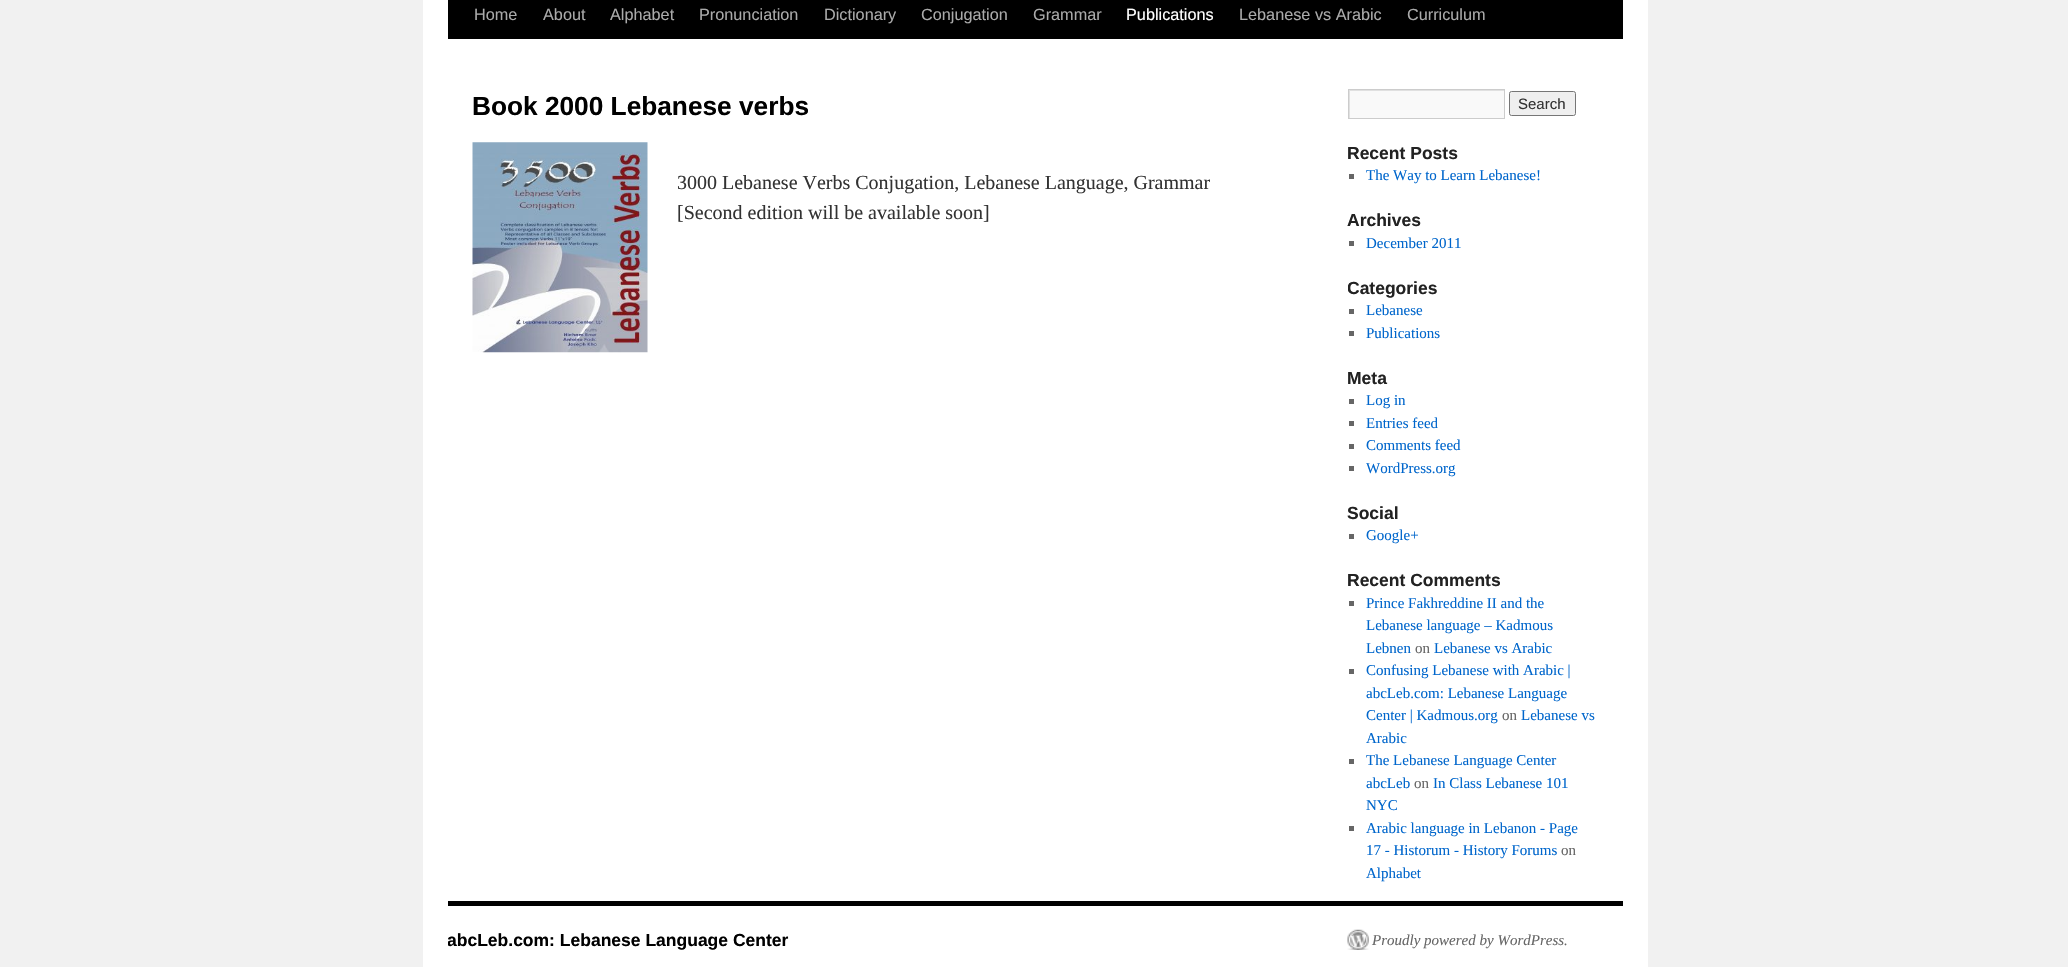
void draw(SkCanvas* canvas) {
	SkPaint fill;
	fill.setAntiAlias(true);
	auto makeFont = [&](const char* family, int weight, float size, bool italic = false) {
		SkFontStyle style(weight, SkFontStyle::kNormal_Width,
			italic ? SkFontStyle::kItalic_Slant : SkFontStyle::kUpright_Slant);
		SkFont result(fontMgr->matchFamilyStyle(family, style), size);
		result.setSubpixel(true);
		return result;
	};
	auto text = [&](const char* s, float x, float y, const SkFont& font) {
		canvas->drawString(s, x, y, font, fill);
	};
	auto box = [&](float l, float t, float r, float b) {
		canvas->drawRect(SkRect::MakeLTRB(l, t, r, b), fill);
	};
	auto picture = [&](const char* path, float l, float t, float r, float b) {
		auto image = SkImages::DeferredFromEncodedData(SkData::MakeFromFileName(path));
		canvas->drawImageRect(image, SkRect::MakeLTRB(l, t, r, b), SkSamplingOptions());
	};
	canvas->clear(0xFFF1F1F1);
	fill.setColor(0xFFFFFFFF);
	box(423, 0, 1648, 967);
	fill.setColor(0xFF000000);
	box(448, 0, 1623, 39);
	picture("image0.png", 472, 142, 648, 353);
	fill.setColor(0xFFF9F9F9);
	box(1350, 91, 1504, 118);
	canvas->save();
	canvas->clipRect(SkRect::MakeLTRB(1349, 90, 1504, 118));
	fill.setColor(0xFFE0E0E0);
	canvas->drawPath(SkPathBuilder(SkPathFillType::kEvenOdd).moveTo(1225, -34).lineTo(1628, -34).lineTo(1628, 241).lineTo(1225, 241).close().moveTo(1350, 91).lineTo(1505, 91).lineTo(1505, 119).lineTo(1350, 119).close().detach(), fill);
	canvas->restore();
	fill.setStyle(SkPaint::kStroke_Style);
	fill.setStrokeWidth(1);
	fill.setColor(0xFFCCCCCC);
	canvas->drawRect(SkRect::MakeLTRB(1348.5f, 89.5f, 1504.5f, 118.5f), fill);
	fill.setStyle(SkPaint::kFill_Style);
	fill.setColor(0xFFEFEFEF);
	canvas->drawRoundRect(SkRect::MakeLTRB(1509.5f, 91.5f, 1575.5f, 115.5f), 2, 2, fill);
	fill.setStyle(SkPaint::kStroke_Style);
	fill.setColor(0xFF767676);
	canvas->drawRoundRect(SkRect::MakeLTRB(1509.5f, 91.5f, 1575.5f, 115.5f), 2, 2, fill);
	fill.setStyle(SkPaint::kFill_Style);
	fill.setColor(0xFF666666);
	box(1349, 174, 1354, 179);
	box(1349, 241, 1354, 246);
	box(1349, 309, 1354, 314);
	box(1349, 331, 1354, 336);
	box(1349, 399, 1354, 404);
	box(1349, 421, 1354, 426);
	box(1349, 444, 1354, 449);
	box(1349, 466, 1354, 471);
	box(1349, 534, 1354, 539);
	box(1349, 601, 1354, 606);
	box(1349, 669, 1354, 674);
	box(1349, 759, 1354, 764);
	box(1349, 826, 1354, 831);
	fill.setColor(0xFF000000);
	box(448, 901, 1623, 906);
	picture("image1.png", 1347, 929, 1369, 950);
	auto font1 = makeFont("Liberation Sans", 400, 16.25f);
	fill.setColor(0xFFAAAAAA);
	text("Home", 474, 20, font1);
	text("About", 543, 20, font1);
	text("Alphabet", 610, 20, font1);
	text("Pronunciation", 699, 20, font1);
	text("Dictionary", 824, 20, font1);
	text("Conjugation", 921, 20, font1);
	text("Grammar", 1033, 20, font1);
	fill.setColor(0xFFFFFFFF);
	text("Publications", 1126, 20, font1);
	fill.setColor(0xFFAAAAAA);
	text("Lebanese vs Arabic", 1239, 20, font1);
	text("Curriculum", 1407, 20, font1);
	auto font2 = makeFont("Liberation Sans", 700, 26.25f);
	fill.setColor(0xFF000000);
	text("Book 2000 Lebanese verbs", 472, 115, font2);
	auto font3 = makeFont("Liberation Serif", 400, 20);
	fill.setColor(0xFF333333);
	text("3000 Lebanese Verbs Conjugation, Lebanese Language, Grammar", 677, 189, font3);
	text("[Second edition will be available soon]", 677, 219, font3);
	auto font4 = makeFont("Liberation Sans", 400, 15);
	text("Search", 1518, 109, font4);
	auto font5 = makeFont("Liberation Sans", 700, 17.5f);
	fill.setColor(0xFF222222);
	text("Recent Posts", 1347, 159, font5);
	auto font6 = makeFont("Liberation Serif", 400, 15);
	fill.setColor(0xFF0066CC);
	text("The Way to Learn Lebanese!", 1366, 180, font6);
	fill.setColor(0xFF222222);
	text("Archives", 1347, 226, font5);
	fill.setColor(0xFF0066CC);
	text("December 2011", 1366, 248, font6);
	canvas->save();
	canvas->clipRect(SkRect::MakeLTRB(1348, 89, 1623, 569));
	fill.setColor(0xFF222222);
	text("Categories", 1347, 294, font5);
	canvas->restore();
	fill.setColor(0xFF0066CC);
	text("Lebanese", 1366, 315, font6);
	text("Publications", 1366, 338, font6);
	fill.setColor(0xFF222222);
	text("Meta", 1347, 384, font5);
	fill.setColor(0xFF0066CC);
	text("Log in", 1366, 405, font6);
	text("Entries feed", 1366, 428, font6);
	text("Comments feed", 1366, 450, font6);
	text("WordPress.org", 1366, 473, font6);
	fill.setColor(0xFF222222);
	text("Social", 1347, 519, font5);
	fill.setColor(0xFF0066CC);
	text("Google+", 1366, 540, font6);
	fill.setColor(0xFF222222);
	text("Recent Comments", 1347, 586, font5);
	fill.setColor(0xFF0066CC);
	text("Prince Fakhreddine II and the", 1366, 608, font6);
	text("Lebanese language – Kadmous", 1366, 630, font6);
	text("Lebnen", 1366, 653, font6);
	fill.setColor(0xFF666666);
	text("on", 1415, 653, font6);
	fill.setColor(0xFF0066CC);
	text("Lebanese vs Arabic", 1434, 653, font6);
	text("Confusing Lebanese with Arabic |", 1366, 675, font6);
	text("abcLeb.com: Lebanese Language", 1366, 698, font6);
	text("Center | Kadmous.org", 1366, 720, font6);
	fill.setColor(0xFF666666);
	text("on", 1502, 720, font6);
	fill.setColor(0xFF0066CC);
	text("Lebanese vs", 1521, 720, font6);
	text("Arabic", 1366, 743, font6);
	text("The Lebanese Language Center", 1366, 765, font6);
	text("abcLeb", 1366, 788, font6);
	fill.setColor(0xFF666666);
	text("on", 1414, 788, font6);
	fill.setColor(0xFF0066CC);
	text("In Class Lebanese 101", 1433, 788, font6);
	text("NYC", 1366, 810, font6);
	text("Arabic language in Lebanon - Page", 1366, 833, font6);
	text("17 - Historum - History Forums", 1366, 855, font6);
	fill.setColor(0xFF666666);
	text("on", 1561, 855, font6);
	fill.setColor(0xFF0066CC);
	text("Alphabet", 1366, 878, font6);
	canvas->save();
	canvas->clipRect(SkRect::MakeLTRB(448, 906, 1623, 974));
	fill.setColor(0xFF000000);
	text("abcLeb.com: Lebanese Language Center", 447, 946, font5);
	canvas->restore();
	auto font7 = makeFont("Liberation Serif", 400, 15, true);
	fill.setColor(0xFF666666);
	text("Proudly powered by WordPress.", 1372, 945, font7);
}
